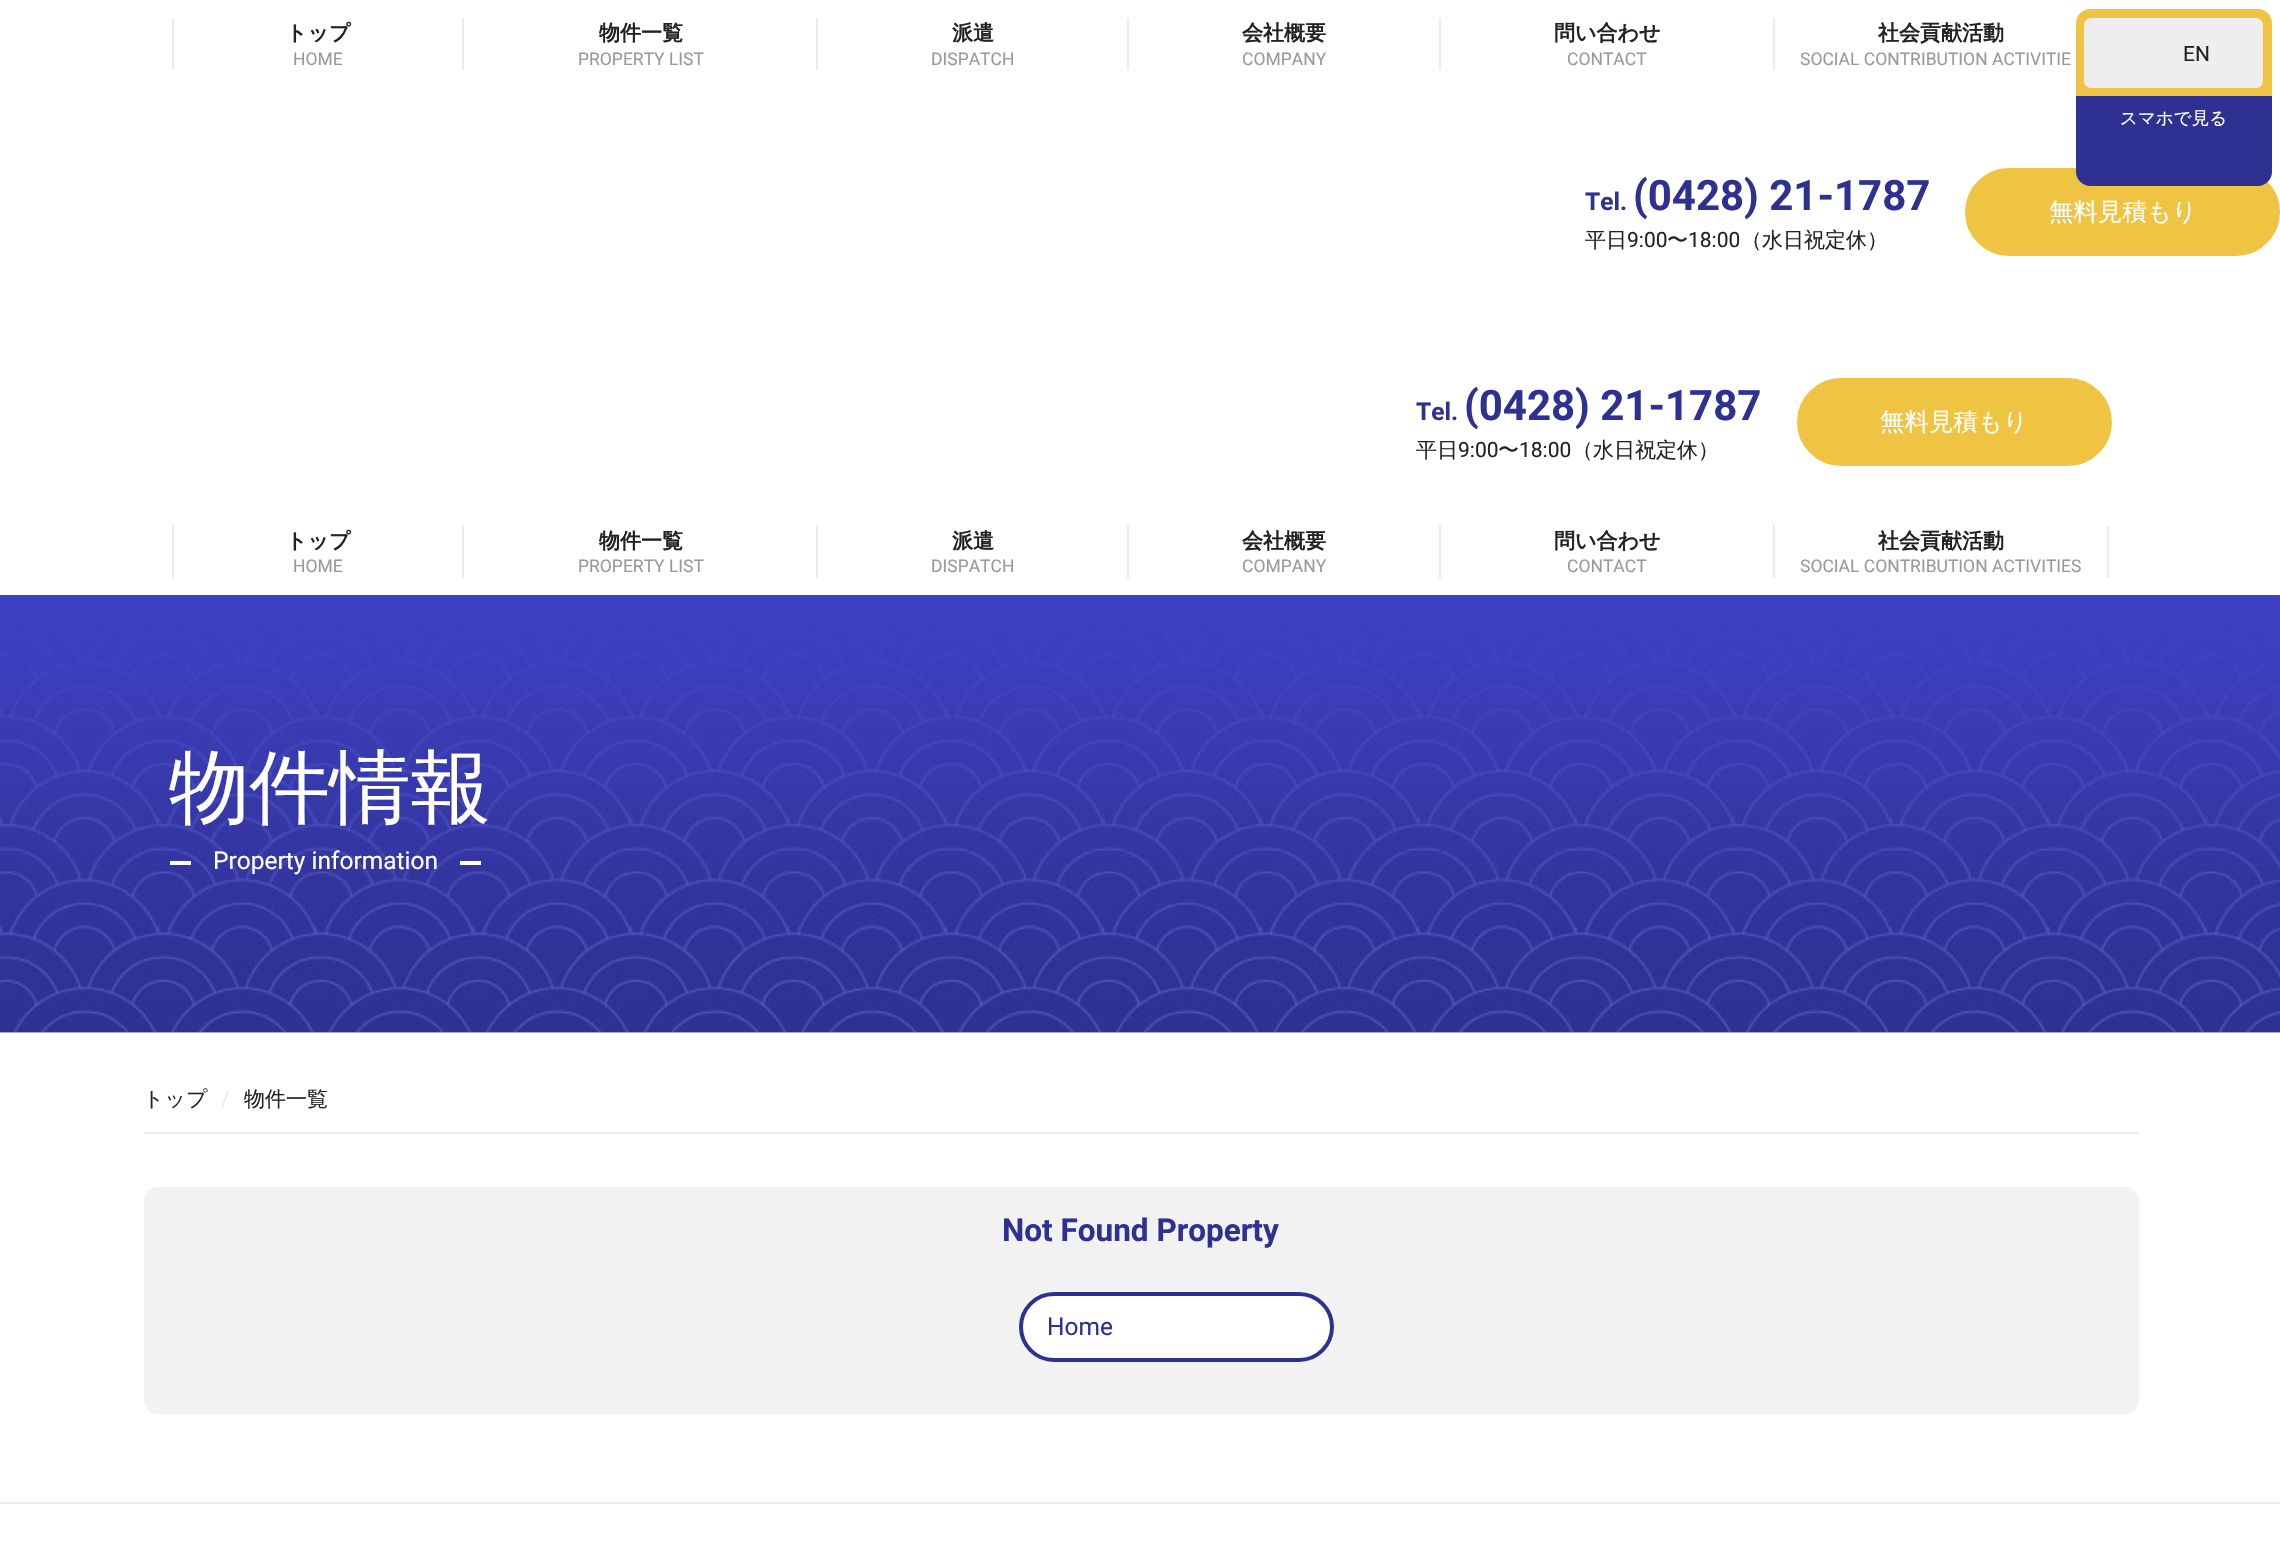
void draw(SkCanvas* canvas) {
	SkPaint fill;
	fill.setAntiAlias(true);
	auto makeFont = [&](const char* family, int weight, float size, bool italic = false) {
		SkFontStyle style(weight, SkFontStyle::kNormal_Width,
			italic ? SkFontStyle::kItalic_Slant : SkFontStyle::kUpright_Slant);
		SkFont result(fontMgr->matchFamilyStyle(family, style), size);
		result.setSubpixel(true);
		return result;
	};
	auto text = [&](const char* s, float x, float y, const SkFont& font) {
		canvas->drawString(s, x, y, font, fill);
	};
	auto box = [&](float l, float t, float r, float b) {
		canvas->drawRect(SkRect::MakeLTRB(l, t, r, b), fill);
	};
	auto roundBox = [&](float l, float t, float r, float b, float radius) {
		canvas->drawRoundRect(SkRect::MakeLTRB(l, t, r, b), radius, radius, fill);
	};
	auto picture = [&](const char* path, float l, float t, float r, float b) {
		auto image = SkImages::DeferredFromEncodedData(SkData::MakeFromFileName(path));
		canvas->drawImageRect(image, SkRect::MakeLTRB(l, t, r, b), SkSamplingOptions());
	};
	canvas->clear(0xFFFFFFFF);
	fill.setColor(0xFFEBEBEB);
	box(172, 18, 174, 70);
	box(462, 18, 464, 70);
	box(816, 18, 818, 70);
	box(1127, 18, 1129, 70);
	box(1439, 18, 1441, 70);
	box(1773, 18, 1775, 70);
	fill.setColor(0xFFF0C443);
	canvas->drawRoundRect(SkRect::MakeLTRB(1967, 170, 2278, 254), 42, 42, fill);
	fill.setStyle(SkPaint::kStroke_Style);
	fill.setStrokeWidth(4);
	canvas->drawRoundRect(SkRect::MakeLTRB(1967, 170, 2278, 254), 42, 42, fill);
	fill.setStyle(SkPaint::kFill_Style);
	canvas->drawPath(SkPathBuilder().moveTo(2090, 9).lineTo(2258, 9).cubicTo(2265.5f, 9, 2272, 15.5f, 2272, 23).lineTo(2272, 96).lineTo(2076, 96).lineTo(2076, 23).cubicTo(2076, 15.5f, 2082.5f, 9, 2090, 9).close().detach(), fill);
	fill.setColor(0xFFEEEEEE);
	roundBox(2084, 18, 2263, 88, 7);
	fill.setColor(0xFF2E3192);
	canvas->drawPath(SkPathBuilder().moveTo(2076, 96).lineTo(2272, 96).lineTo(2272, 172).cubicTo(2272, 179.5f, 2265.5f, 186, 2258, 186).lineTo(2090, 186).cubicTo(2082.5f, 186, 2076, 179.5f, 2076, 172).close().detach(), fill);
	fill.setColor(0xFFF0C443);
	canvas->drawRoundRect(SkRect::MakeLTRB(1799, 380, 2110, 464), 42, 42, fill);
	fill.setStyle(SkPaint::kStroke_Style);
	canvas->drawRoundRect(SkRect::MakeLTRB(1799, 380, 2110, 464), 42, 42, fill);
	fill.setStyle(SkPaint::kFill_Style);
	fill.setColor(0xFFEBEBEB);
	box(172, 525, 174, 578);
	box(462, 525, 464, 578);
	box(816, 525, 818, 578);
	box(1127, 525, 1129, 578);
	box(1439, 525, 1441, 578);
	box(1773, 525, 1775, 578);
	box(2107, 525, 2109, 578);
	fill.setColor(0xFFCDCDCD);
	box(0, 1032, 2280, 1033);
	picture("image0.png", 0, 595, 2280, 1033);
	fill.setColor(0xFFFFFFFF);
	box(170, 861, 191, 865);
	box(460, 861, 481, 865);
	fill.setColor(0xFFEBEBEB);
	box(144, 1132, 2139, 1134);
	fill.setColor(0xFFF2F2F2);
	roundBox(144, 1187, 2139, 1414, 14);
	fill.setColor(0xFFFFFFFF);
	canvas->drawRoundRect(SkRect::MakeLTRB(1021, 1294, 1332, 1360), 33, 33, fill);
	fill.setStyle(SkPaint::kStroke_Style);
	fill.setColor(0xFF2E3192);
	canvas->drawRoundRect(SkRect::MakeLTRB(1021, 1294, 1332, 1360), 33, 33, fill);
	fill.setStyle(SkPaint::kFill_Style);
	fill.setColor(0xFFEBEBEB);
	box(0, 1502, 2280, 1504);
	auto font1 = makeFont("WenQuanYi Zen Hei", 700, 21);
	fill.setColor(0xFF222222);
	text("トップ", 286, 40, font1);
	auto font2 = makeFont("Roboto", 400, 17.5f);
	fill.setColor(0xFF999999);
	text("HOME", 293, 65, font2);
	fill.setColor(0xFF222222);
	text("物件一覧", 599, 40, font1);
	fill.setColor(0xFF999999);
	text("PROPERTY LIST", 578, 65, font2);
	fill.setColor(0xFF222222);
	text("派遣", 952, 40, font1);
	fill.setColor(0xFF999999);
	text("DISPATCH", 931, 65, font2);
	fill.setColor(0xFF222222);
	text("会社概要", 1242, 40, font1);
	fill.setColor(0xFF999999);
	text("COMPANY", 1242, 65, font2);
	fill.setColor(0xFF222222);
	text("問い合わせ", 1554, 40, font1);
	fill.setColor(0xFF999999);
	text("CONTACT", 1567, 65, font2);
	fill.setColor(0xFF222222);
	text("社会貢献活動", 1878, 40, font1);
	fill.setColor(0xFF999999);
	text("SOCIAL CONTRIBUTION ACTIVITIE", 1800, 65, font2);
	auto font3 = makeFont("Roboto", 700, 24.5f);
	fill.setColor(0xFF2E3192);
	text("Tel.", 1585, 210, font3);
	auto font4 = makeFont("Roboto", 700, 42);
	text("(0428) 21-1787", 1633, 210, font4);
	auto font5 = makeFont("WenQuanYi Zen Hei", 500, 21);
	fill.setColor(0xFF222222);
	text("平日", 1585, 247, font5);
	auto font6 = makeFont("Roboto", 400, 21);
	text("9:00", 1627, 247, font6);
	text("〜", 1667, 247, font5);
	text("18:00", 1688, 247, font6);
	text("（水日祝定休）", 1741, 247, font5);
	auto font7 = makeFont("WenQuanYi Zen Hei", 500, 24.5f);
	fill.setColor(0xFFFFFFFF);
	text("無料見積もり", 2049, 220, font7);
	fill.setColor(0xFF222222);
	text("EN", 2183, 61, font6);
	auto font8 = makeFont("WenQuanYi Zen Hei", 500, 17.5f);
	fill.setColor(0xFFFFFFFF);
	text("スマホで見る", 2120, 124, font8);
	fill.setColor(0xFF2E3192);
	text("Tel.", 1416, 420, font3);
	text("(0428) 21-1787", 1464, 420, font4);
	fill.setColor(0xFF222222);
	text("平日", 1416, 457, font5);
	text("9:00", 1458, 457, font6);
	text("〜", 1498, 457, font5);
	text("18:00", 1519, 457, font6);
	text("（水日祝定休）", 1572, 457, font5);
	fill.setColor(0xFFFFFFFF);
	text("無料見積もり", 1880, 430, font7);
	fill.setColor(0xFF222222);
	text("トップ", 286, 548, font1);
	fill.setColor(0xFF999999);
	text("HOME", 293, 572, font2);
	fill.setColor(0xFF222222);
	text("物件一覧", 599, 548, font1);
	fill.setColor(0xFF999999);
	text("PROPERTY LIST", 578, 572, font2);
	fill.setColor(0xFF222222);
	text("派遣", 952, 548, font1);
	fill.setColor(0xFF999999);
	text("DISPATCH", 931, 572, font2);
	fill.setColor(0xFF222222);
	text("会社概要", 1242, 548, font1);
	fill.setColor(0xFF999999);
	text("COMPANY", 1242, 572, font2);
	fill.setColor(0xFF222222);
	text("問い合わせ", 1554, 548, font1);
	fill.setColor(0xFF999999);
	text("CONTACT", 1567, 572, font2);
	fill.setColor(0xFF222222);
	text("社会貢献活動", 1878, 548, font1);
	fill.setColor(0xFF999999);
	text("SOCIAL CONTRIBUTION ACTIVITIES", 1800, 572, font2);
	auto font9 = makeFont("WenQuanYi Zen Hei", 500, 80.5f);
	fill.setColor(0xFFFFFFFF);
	text("物件情報", 169, 815, font9);
	auto font10 = makeFont("Roboto", 400, 24.5f);
	text("Property information", 213, 869, font10);
	fill.setColor(0xFF222222);
	text("トップ", 143, 1106, font5);
	fill.setColor(0xFFEBEBEB);
	text("/", 221, 1106, font6);
	fill.setColor(0xFF222222);
	text("物件一覧", 244, 1106, font5);
	auto font11 = makeFont("Roboto", 700, 31.5f);
	fill.setColor(0xFF2E3192);
	text("Not Found Property", 1002, 1241, font11);
	text("Home", 1047, 1335, font10);
}
